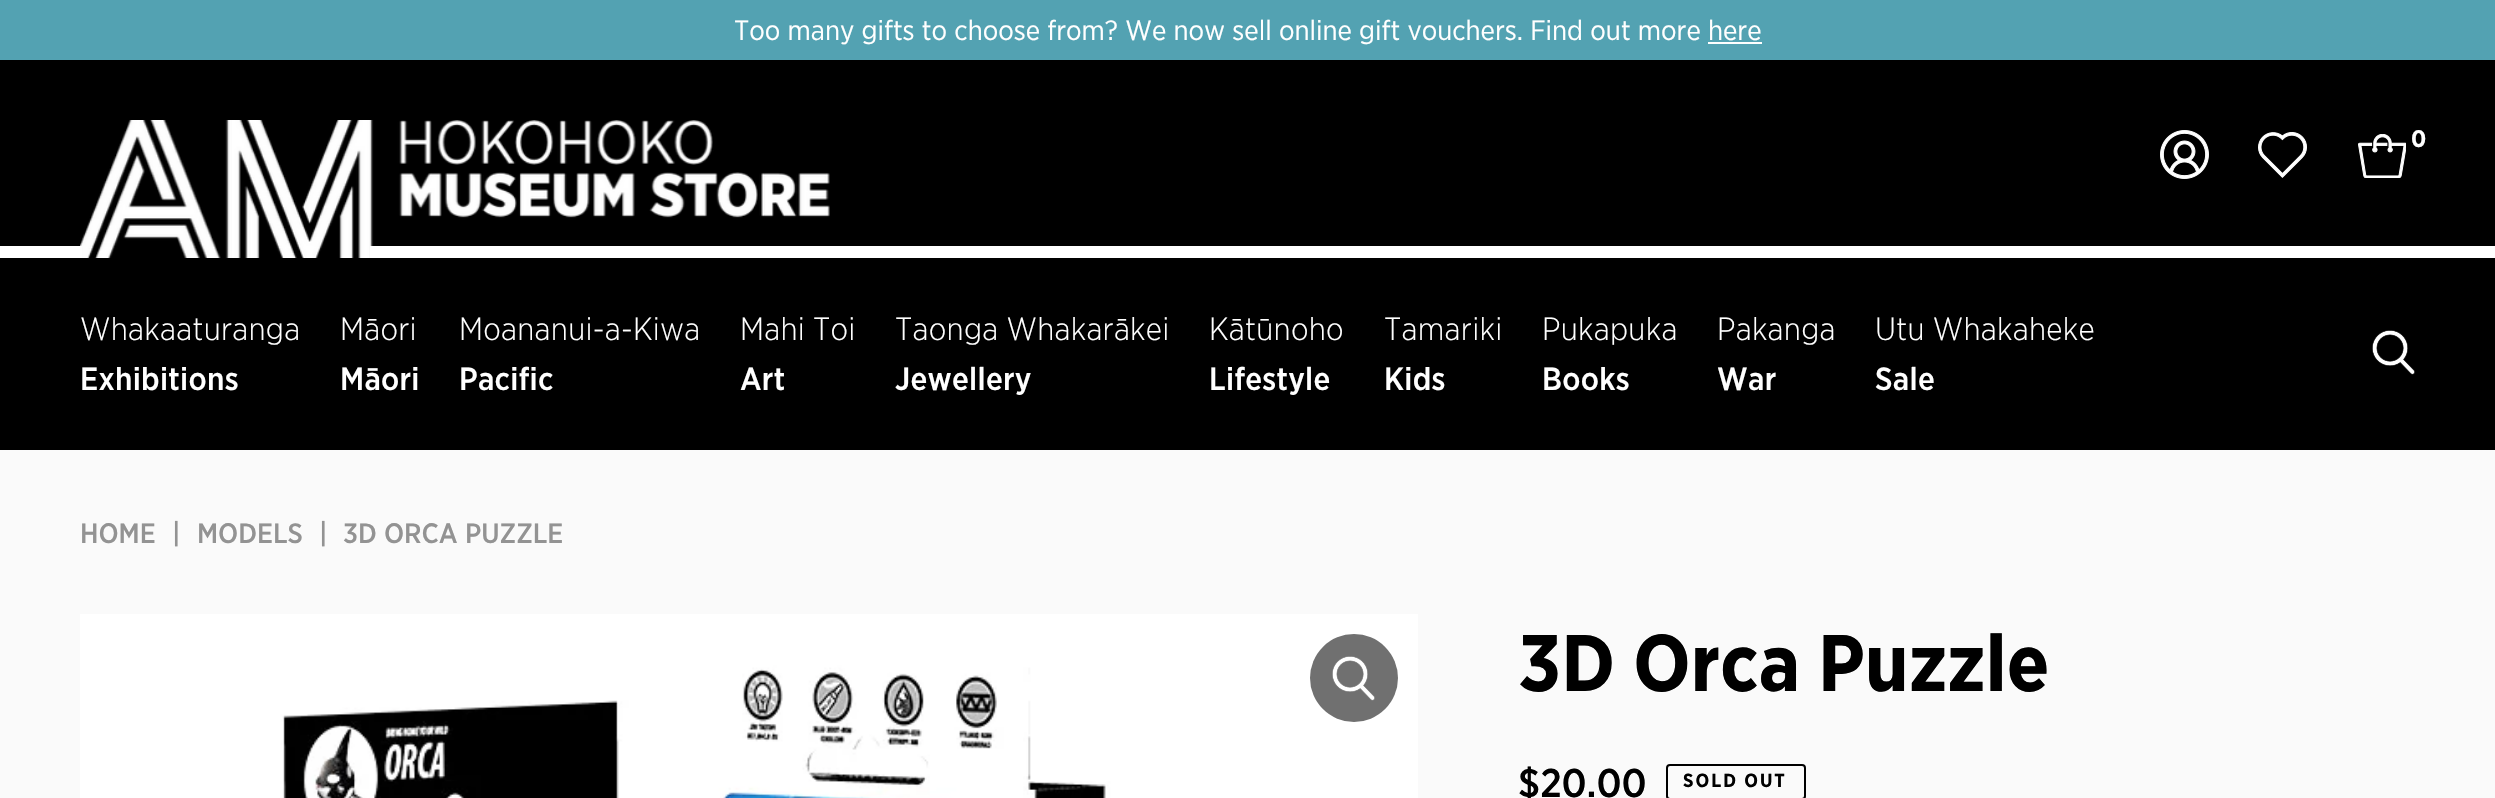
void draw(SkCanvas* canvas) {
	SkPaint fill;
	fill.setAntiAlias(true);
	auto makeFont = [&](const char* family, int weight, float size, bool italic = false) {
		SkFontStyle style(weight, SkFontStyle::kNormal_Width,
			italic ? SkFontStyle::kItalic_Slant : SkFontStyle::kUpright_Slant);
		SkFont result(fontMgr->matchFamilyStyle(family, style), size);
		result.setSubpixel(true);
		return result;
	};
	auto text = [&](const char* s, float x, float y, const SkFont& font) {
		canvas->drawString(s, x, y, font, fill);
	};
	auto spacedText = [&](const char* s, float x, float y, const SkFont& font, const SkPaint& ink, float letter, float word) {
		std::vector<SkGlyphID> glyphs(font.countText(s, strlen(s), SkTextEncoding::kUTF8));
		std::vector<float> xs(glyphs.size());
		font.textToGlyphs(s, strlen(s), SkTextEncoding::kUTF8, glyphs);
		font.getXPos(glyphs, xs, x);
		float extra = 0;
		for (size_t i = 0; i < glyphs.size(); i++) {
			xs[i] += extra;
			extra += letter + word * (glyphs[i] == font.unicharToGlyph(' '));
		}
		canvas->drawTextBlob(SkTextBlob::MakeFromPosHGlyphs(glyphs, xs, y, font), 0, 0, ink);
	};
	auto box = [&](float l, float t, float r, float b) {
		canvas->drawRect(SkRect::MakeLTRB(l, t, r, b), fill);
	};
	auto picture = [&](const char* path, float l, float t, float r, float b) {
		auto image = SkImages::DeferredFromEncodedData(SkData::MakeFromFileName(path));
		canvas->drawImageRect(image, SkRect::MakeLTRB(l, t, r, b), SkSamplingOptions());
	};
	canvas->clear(0xFFFAFAFA);
	fill.setColor(0xFF53A2B2);
	box(0, 0, 2495, 60);
	fill.setColor(0xFFFFFFFF);
	box(1708, 42, 1762, 44);
	fill.setColor(0xFF000000);
	box(0, 60, 2495, 450);
	picture("image0.png", 80, 120, 830, 258);
	fill.setColor(0xFFFFFFFF);
	box(0, 246, 82, 258);
	box(370, 246, 2495, 258);
	picture("image1.png", 2160, 130, 2209, 179);
	picture("image2.png", 2258, 132, 2307, 178);
	picture("image3.png", 2358, 134, 2406, 178);
	picture("image4.png", 2372, 330, 2415, 375);
	picture("image5.png", 80, 614, 1418, 798);
	fill.setColor(0xFF707070);
	canvas->drawCircle(1354, 678, 44, fill);
	picture("image6.png", 1332, 656, 1375, 701);
	fill.setStyle(SkPaint::kStroke_Style);
	fill.setStrokeWidth(2);
	fill.setColor(0xFF000000);
	canvas->drawRoundRect(SkRect::MakeLTRB(1667, 765, 1805, 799), 3, 3, fill);
	auto font1 = makeFont("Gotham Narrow", 400, 28);
	fill.setStyle(SkPaint::kFill_Style);
	fill.setColor(0xFFFFFFFF);
	text("Too many gifts to choose from? We now sell online gift vouchers. Find out more here", 734, 40, font1);
	auto font2 = makeFont("Gotham Narrow", 700, 24);
	text("0", 2411, 147, font2);
	auto font3 = makeFont("Gotham Narrow", 300, 32);
	spacedText("Whakaaturanga", 80, 340, font3, fill, 0.3f, 0);
	auto font4 = makeFont("Gotham Narrow", 500, 32);
	spacedText("Exhibitions", 80, 390, font4, fill, 0.3f, 0);
	spacedText("Māori", 340, 340, font3, fill, 0.3f, 0);
	spacedText("Māori", 340, 390, font4, fill, 0.3f, 0);
	spacedText("Moananui-a-Kiwa", 459, 340, font3, fill, 0.3f, 0);
	spacedText("Pacific", 459, 390, font4, fill, 0.3f, 0);
	spacedText("Mahi Toi", 740, 340, font3, fill, 0.3f, 0);
	spacedText("Art", 740, 390, font4, fill, 0.3f, 0);
	spacedText("Taonga Whakarākei", 895, 340, font3, fill, 0.3f, 0);
	spacedText("Jewellery", 895, 390, font4, fill, 0.3f, 0);
	spacedText("Kātūnoho", 1209, 340, font3, fill, 0.3f, 0);
	spacedText("Lifestyle", 1209, 390, font4, fill, 0.3f, 0);
	spacedText("Tamariki", 1384, 340, font3, fill, 0.3f, 0);
	spacedText("Kids", 1384, 390, font4, fill, 0.3f, 0);
	spacedText("Pukapuka", 1542, 340, font3, fill, 0.3f, 0);
	spacedText("Books", 1542, 390, font4, fill, 0.3f, 0);
	spacedText("Pakanga", 1717, 340, font3, fill, 0.3f, 0);
	spacedText("War", 1717, 390, font4, fill, 0.3f, 0);
	spacedText("Utu Whakaheke", 1875, 340, font3, fill, 0.3f, 0);
	spacedText("Sale", 1875, 390, font4, fill, 0.3f, 0);
	auto font5 = makeFont("Gotham Narrow", 500, 28);
	fill.setColor(0xFF939393);
	text("HOME", 80, 543, font5);
	text("|", 172, 543, font5);
	text("MODELS", 197, 543, font5);
	text("|", 319, 543, font5);
	text("3D ORCA PUZZLE", 343, 543, font5);
	auto font6 = makeFont("Gotham Narrow", 700, 80);
	fill.setColor(0xFF000000);
	text("3D Orca Puzzle", 1518, 691, font6);
	auto font7 = makeFont("Gotham Narrow", 500, 40);
	text("$20.00", 1518, 797, font7);
	auto font8 = makeFont("Gotham Narrow", 700, 19);
	spacedText("SOLD OUT", 1683, 787, font8, fill, 2, 0);
}
